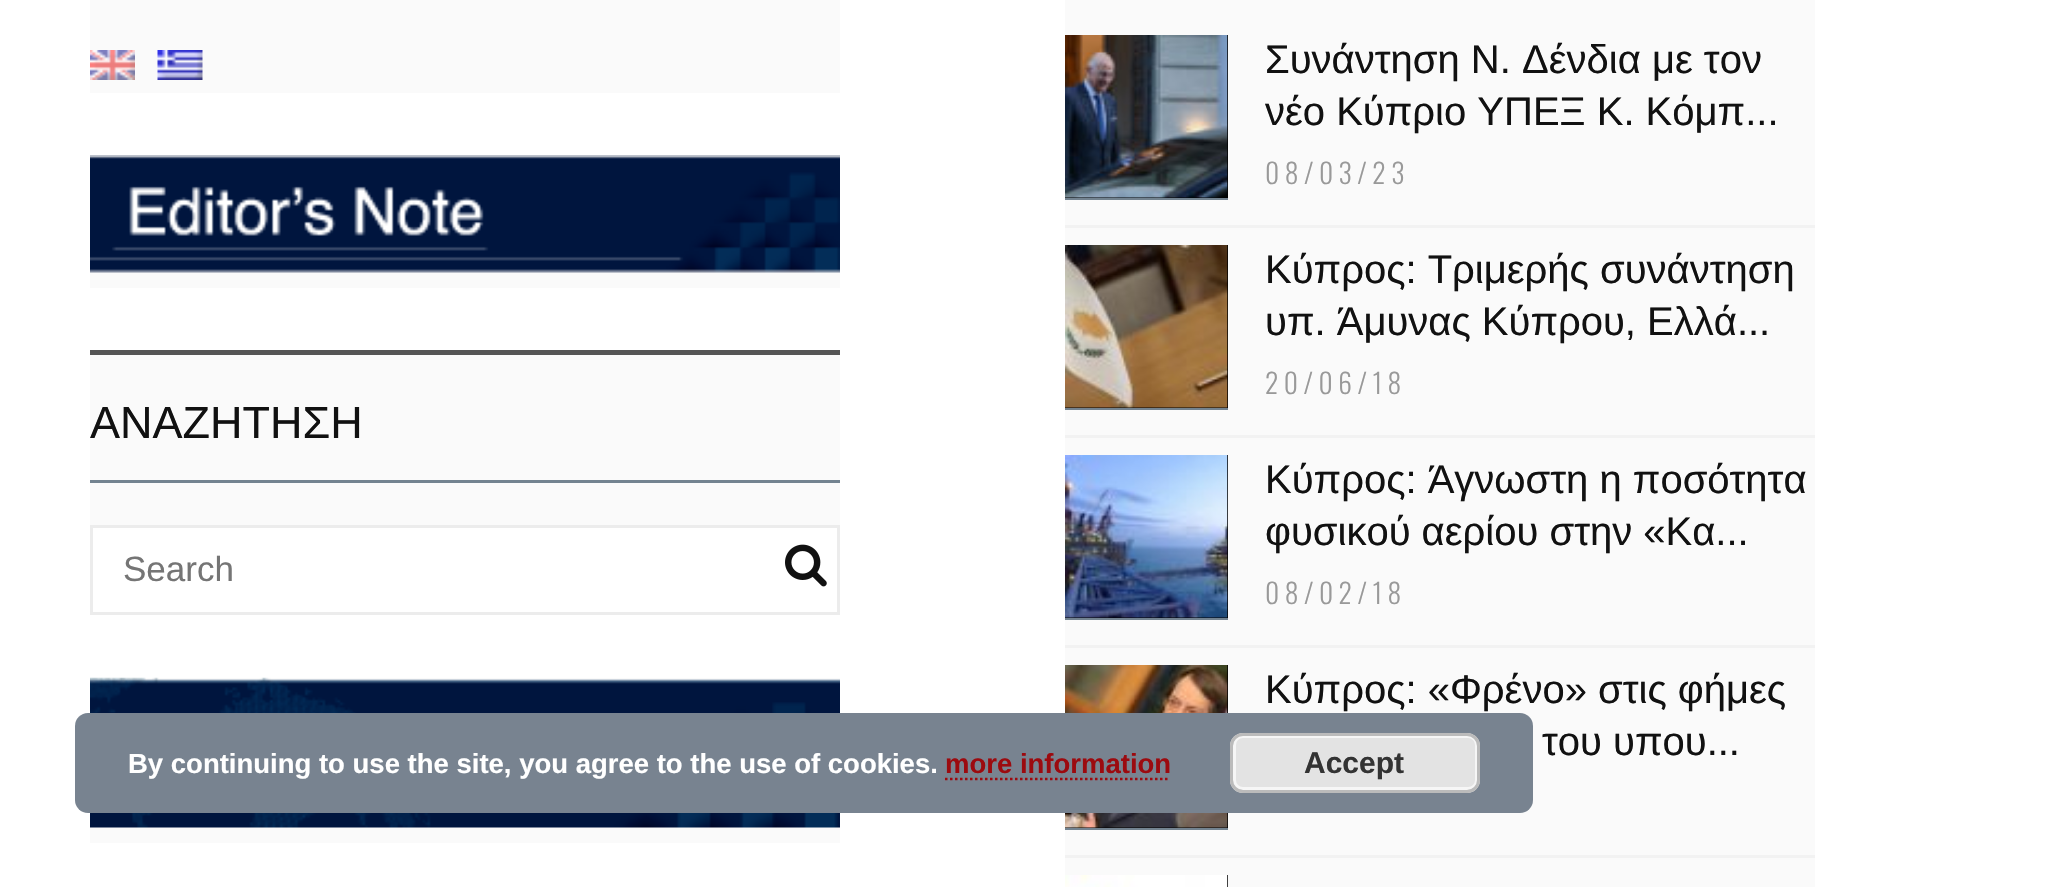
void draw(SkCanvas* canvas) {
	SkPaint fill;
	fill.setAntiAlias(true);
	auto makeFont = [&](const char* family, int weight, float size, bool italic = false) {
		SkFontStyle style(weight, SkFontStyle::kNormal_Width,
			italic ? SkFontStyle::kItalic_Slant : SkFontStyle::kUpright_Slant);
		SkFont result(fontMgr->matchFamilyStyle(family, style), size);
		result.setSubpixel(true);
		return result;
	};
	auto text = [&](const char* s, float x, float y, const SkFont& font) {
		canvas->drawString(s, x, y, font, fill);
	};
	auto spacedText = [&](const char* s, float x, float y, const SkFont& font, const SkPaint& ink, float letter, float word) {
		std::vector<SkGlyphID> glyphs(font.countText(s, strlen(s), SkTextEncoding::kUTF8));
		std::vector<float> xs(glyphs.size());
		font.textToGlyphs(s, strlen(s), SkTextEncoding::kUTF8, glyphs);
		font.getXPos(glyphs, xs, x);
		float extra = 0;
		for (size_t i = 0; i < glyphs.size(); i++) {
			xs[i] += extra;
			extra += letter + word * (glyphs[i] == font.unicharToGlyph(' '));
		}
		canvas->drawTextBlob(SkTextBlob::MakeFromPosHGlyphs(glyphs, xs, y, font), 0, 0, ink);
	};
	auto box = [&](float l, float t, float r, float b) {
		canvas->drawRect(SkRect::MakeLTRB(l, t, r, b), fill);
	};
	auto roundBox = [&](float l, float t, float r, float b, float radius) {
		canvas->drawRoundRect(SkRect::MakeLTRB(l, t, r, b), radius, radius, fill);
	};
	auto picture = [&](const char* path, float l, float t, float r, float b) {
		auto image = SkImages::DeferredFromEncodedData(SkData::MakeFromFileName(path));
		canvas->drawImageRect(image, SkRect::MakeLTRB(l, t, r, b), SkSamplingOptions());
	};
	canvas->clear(0xFFFFFFFF);
	fill.setColor(0xFFFAFAFA);
	box(90, 0, 840, 93);
	picture("image0.png", 90, 50, 135, 80);
	picture("image1.png", 157, 50, 203, 80);
	box(1065, 0, 1815, 887);
	fill.setColor(0xFFF2F2F2);
	box(1065, 225, 1815, 228);
	fill.setColor(0xFF000000);
	box(1065, 35, 1228, 198);
	fill.setColor(0xFF738390);
	box(1065, 198, 1228, 200);
	picture("image2.png", 1065, 35, 1228, 198);
	fill.setColor(0xFFF2F2F2);
	box(1065, 435, 1815, 438);
	fill.setColor(0xFF000000);
	box(1065, 245, 1228, 408);
	fill.setColor(0xFF738390);
	box(1065, 408, 1228, 410);
	picture("image3.png", 1065, 245, 1228, 408);
	fill.setColor(0xFFF2F2F2);
	box(1065, 645, 1815, 648);
	fill.setColor(0xFF000000);
	box(1065, 455, 1228, 618);
	fill.setColor(0xFF738390);
	box(1065, 618, 1228, 620);
	picture("image4.png", 1065, 455, 1228, 618);
	fill.setColor(0xFFF2F2F2);
	box(1065, 855, 1815, 858);
	fill.setColor(0xFF000000);
	box(1065, 665, 1228, 828);
	fill.setColor(0xFF738390);
	box(1065, 828, 1228, 830);
	picture("image5.png", 1065, 665, 1228, 828);
	fill.setColor(0xFF000000);
	box(1227, 875, 1228, 887);
	picture("image6.png", 1065, 875, 1228, 887);
	fill.setColor(0xFFFAFAFA);
	box(90, 155, 840, 288);
	picture("image7.png", 90, 155, 840, 273);
	box(90, 355, 840, 525);
	fill.setColor(0xFF555555);
	box(90, 350, 840, 355);
	fill.setColor(0xFF738390);
	box(90, 480, 840, 483);
	fill.setStyle(SkPaint::kStroke_Style);
	fill.setStrokeWidth(3);
	fill.setColor(0xFFECECEC);
	canvas->drawRect(SkRect::MakeLTRB(91.5f, 526.5f, 838.5f, 613.5f), fill);
	picture("image8.png", 785, 544, 827, 587);
	fill.setStyle(SkPaint::kFill_Style);
	fill.setColor(0xFFFAFAFA);
	box(90, 678, 840, 843);
	picture("image9.png", 90, 677, 840, 828);
	fill.setColor(0xFF788390);
	roundBox(75, 713, 1533, 813, 13);
	fill.setStyle(SkPaint::kStroke_Style);
	fill.setStrokeWidth(2.5f);
	fill.setColor(0xFF9C0A0F);
	fill.setPathEffect(SkDashPathEffect::Make({{2.5f, 2.5f}}, 0));
	canvas->drawPath(SkPathBuilder().moveTo(945, 779).lineTo(1170, 779).detach(), fill);
	fill.setPathEffect(nullptr);
	fill.setStyle(SkPaint::kFill_Style);
	fill.setColor(0xFFE3E3E3);
	roundBox(1230, 733, 1480, 793, 13);
	fill.setStyle(SkPaint::kStroke_Style);
	fill.setStrokeWidth(3);
	fill.setColor(0xFFF6F6F6);
	canvas->drawRoundRect(SkRect::MakeLTRB(1234.5f, 736.5f, 1476.5f, 788.5f), 8.5f, 8.5f, fill);
	fill.setColor(0xFFBBBBBB);
	canvas->drawRoundRect(SkRect::MakeLTRB(1231.5f, 734.5f, 1478.5f, 791.5f), 11.5f, 11.5f, fill);
	auto font1 = makeFont("Liberation Sans", 400, 40);
	fill.setStyle(SkPaint::kFill_Style);
	fill.setColor(0xFF111111);
	text("Συνάντηση Ν. Δένδια με τον", 1265, 73, font1);
	text("νέο Κύπριο ΥΠΕΞ Κ. Κόμπ...", 1265, 125, font1);
	auto font2 = makeFont("Oswald", 300, 27.5f);
	fill.setColor(0xFF999999);
	spacedText("08/03/23", 1265, 184, font2, fill, 5.5f, 0);
	fill.setColor(0xFF111111);
	text("Κύπρος: Τριμερής συνάντηση", 1265, 283, font1);
	text("υπ. Άμυνας Κύπρου, Ελλά...", 1265, 335, font1);
	fill.setColor(0xFF999999);
	spacedText("20/06/18", 1265, 394, font2, fill, 5.5f, 0);
	fill.setColor(0xFF111111);
	text("Κύπρος: Άγνωστη η ποσότητα", 1265, 493, font1);
	text("φυσικού αερίου στην «Κα...", 1265, 545, font1);
	fill.setColor(0xFF999999);
	spacedText("08/02/18", 1265, 604, font2, fill, 5.5f, 0);
	fill.setColor(0xFF111111);
	text("Κύπρος: «Φρένο» στις φήμες", 1265, 703, font1);
	text("του υπου...", 1542, 755, font1);
	auto font3 = makeFont("Liberation Sans", 400, 45);
	text("ΑΝΑΖΗΤΗΣΗ", 90, 438, font3);
	auto font4 = makeFont("Liberation Sans", 400, 35);
	fill.setColor(0xFF757575);
	text("Search", 123, 581, font4);
	auto font5 = makeFont("Liberation Sans", 700, 27.5f);
	fill.setColor(0xFFFFFFFF);
	text("By continuing to use the site, you agree to the use of cookies.", 128, 773, font5);
	fill.setColor(0xFF9C0A0F);
	text("more information", 945, 773, font5);
	auto font6 = makeFont("Liberation Sans", 700, 30);
	fill.setColor(0xFF333333);
	text("Accept", 1304, 773, font6);
}
